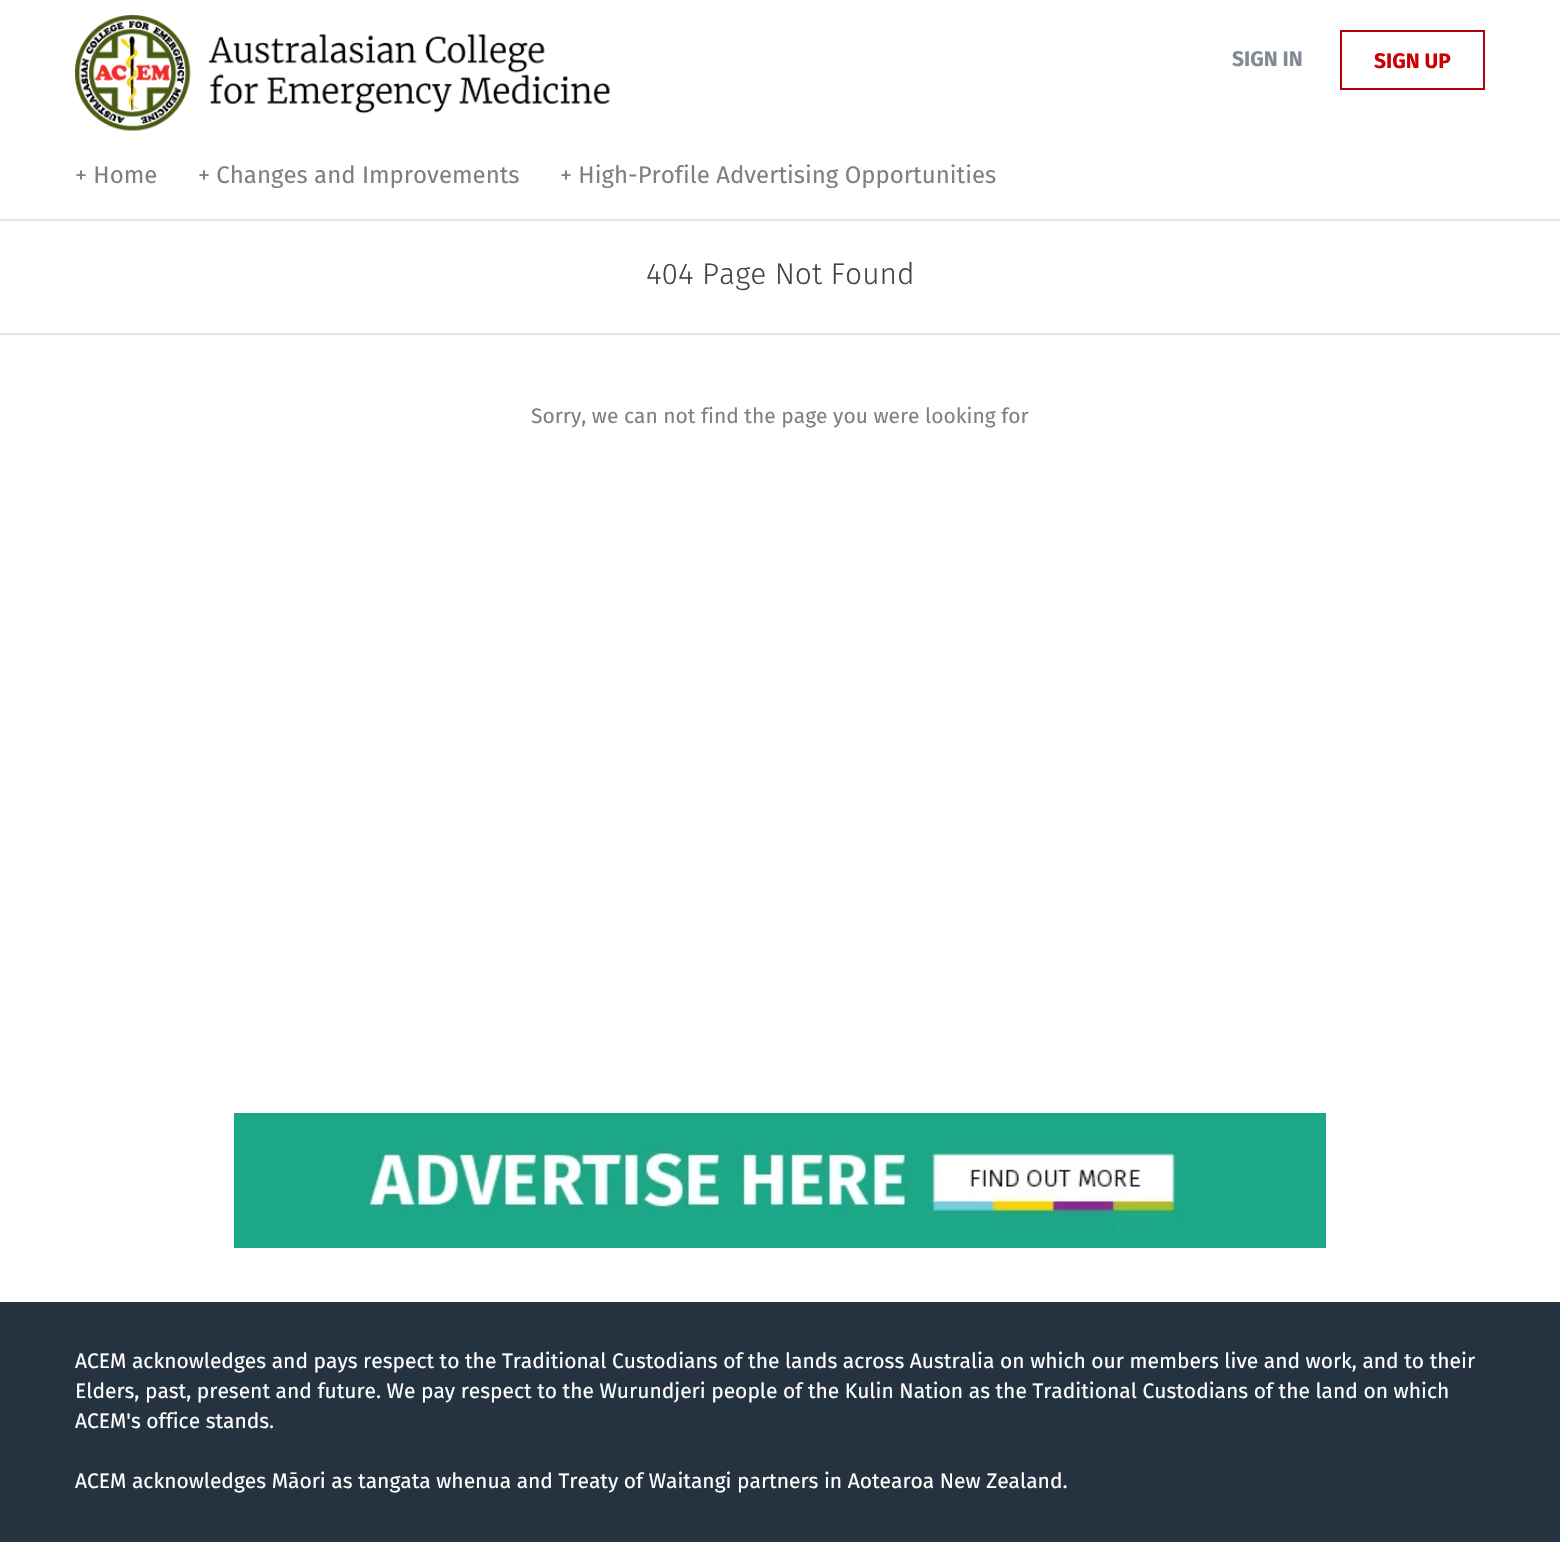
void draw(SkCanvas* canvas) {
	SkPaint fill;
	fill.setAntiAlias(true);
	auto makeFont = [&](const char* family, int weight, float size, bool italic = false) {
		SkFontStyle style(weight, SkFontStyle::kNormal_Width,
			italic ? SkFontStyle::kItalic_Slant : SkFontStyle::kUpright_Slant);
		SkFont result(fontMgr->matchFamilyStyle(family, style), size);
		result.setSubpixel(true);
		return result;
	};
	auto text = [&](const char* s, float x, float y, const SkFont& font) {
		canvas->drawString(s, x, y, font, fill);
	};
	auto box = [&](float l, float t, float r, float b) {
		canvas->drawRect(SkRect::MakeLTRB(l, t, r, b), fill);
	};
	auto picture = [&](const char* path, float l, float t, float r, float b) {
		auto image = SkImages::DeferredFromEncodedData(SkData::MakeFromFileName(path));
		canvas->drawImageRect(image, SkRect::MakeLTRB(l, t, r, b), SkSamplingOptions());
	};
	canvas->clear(0xFFFFFFFF);
	fill.setColor(0xFFE4E6E8);
	box(0, 219, 1560, 221);
	picture("image0.png", 75, 15, 610, 131);
	fill.setStyle(SkPaint::kStroke_Style);
	fill.setStrokeWidth(2);
	fill.setColor(0xFFB30000);
	canvas->drawRect(SkRect::MakeLTRB(1341, 31, 1484, 89), fill);
	fill.setStyle(SkPaint::kFill_Style);
	fill.setColor(0xFFE4E4E4);
	box(0, 333, 1560, 335);
	picture("image1.png", 234, 1113, 1326, 1248);
	fill.setColor(0xFF25323F);
	box(0, 1302, 1560, 1542);
	auto font1 = makeFont("Fira Sans", 700, 21);
	fill.setColor(0xFF818B96);
	text("SIGN IN", 1232, 66, font1);
	fill.setColor(0xFFCC0000);
	text("SIGN UP", 1374, 68, font1);
	auto font2 = makeFont("Fira Sans", 400, 24);
	fill.setColor(0xFF808080);
	text("+ Home", 75, 183, font2);
	text("+ Changes and Improvements", 198, 183, font2);
	text("+ High-Profile Advertising Opportunities", 560, 183, font2);
	auto font3 = makeFont("Fira Sans", 300, 30);
	fill.setColor(0xFF444444);
	text("404 Page Not Found", 646, 284, font3);
	auto font4 = makeFont("Fira Sans", 400, 21);
	fill.setColor(0xFF808080);
	text("Sorry, we can not find the page you were looking for", 531, 423, font4);
	fill.setColor(0xFFFFFFFF);
	text("ACEM acknowledges and pays respect to the Traditional Custodians of the lands across Australia on which our members live and work, and to their", 75, 1368, font4);
	text("Elders, past, present and future. We pay respect to the Wurundjeri people of the Kulin Nation as the Traditional Custodians of the land on which", 75, 1398, font4);
	text("ACEM's office stands.", 75, 1428, font4);
	text("ACEM acknowledges Māori as tangata whenua and Treaty of Waitangi partners in Aotearoa New Zealand.", 75, 1488, font4);
}
